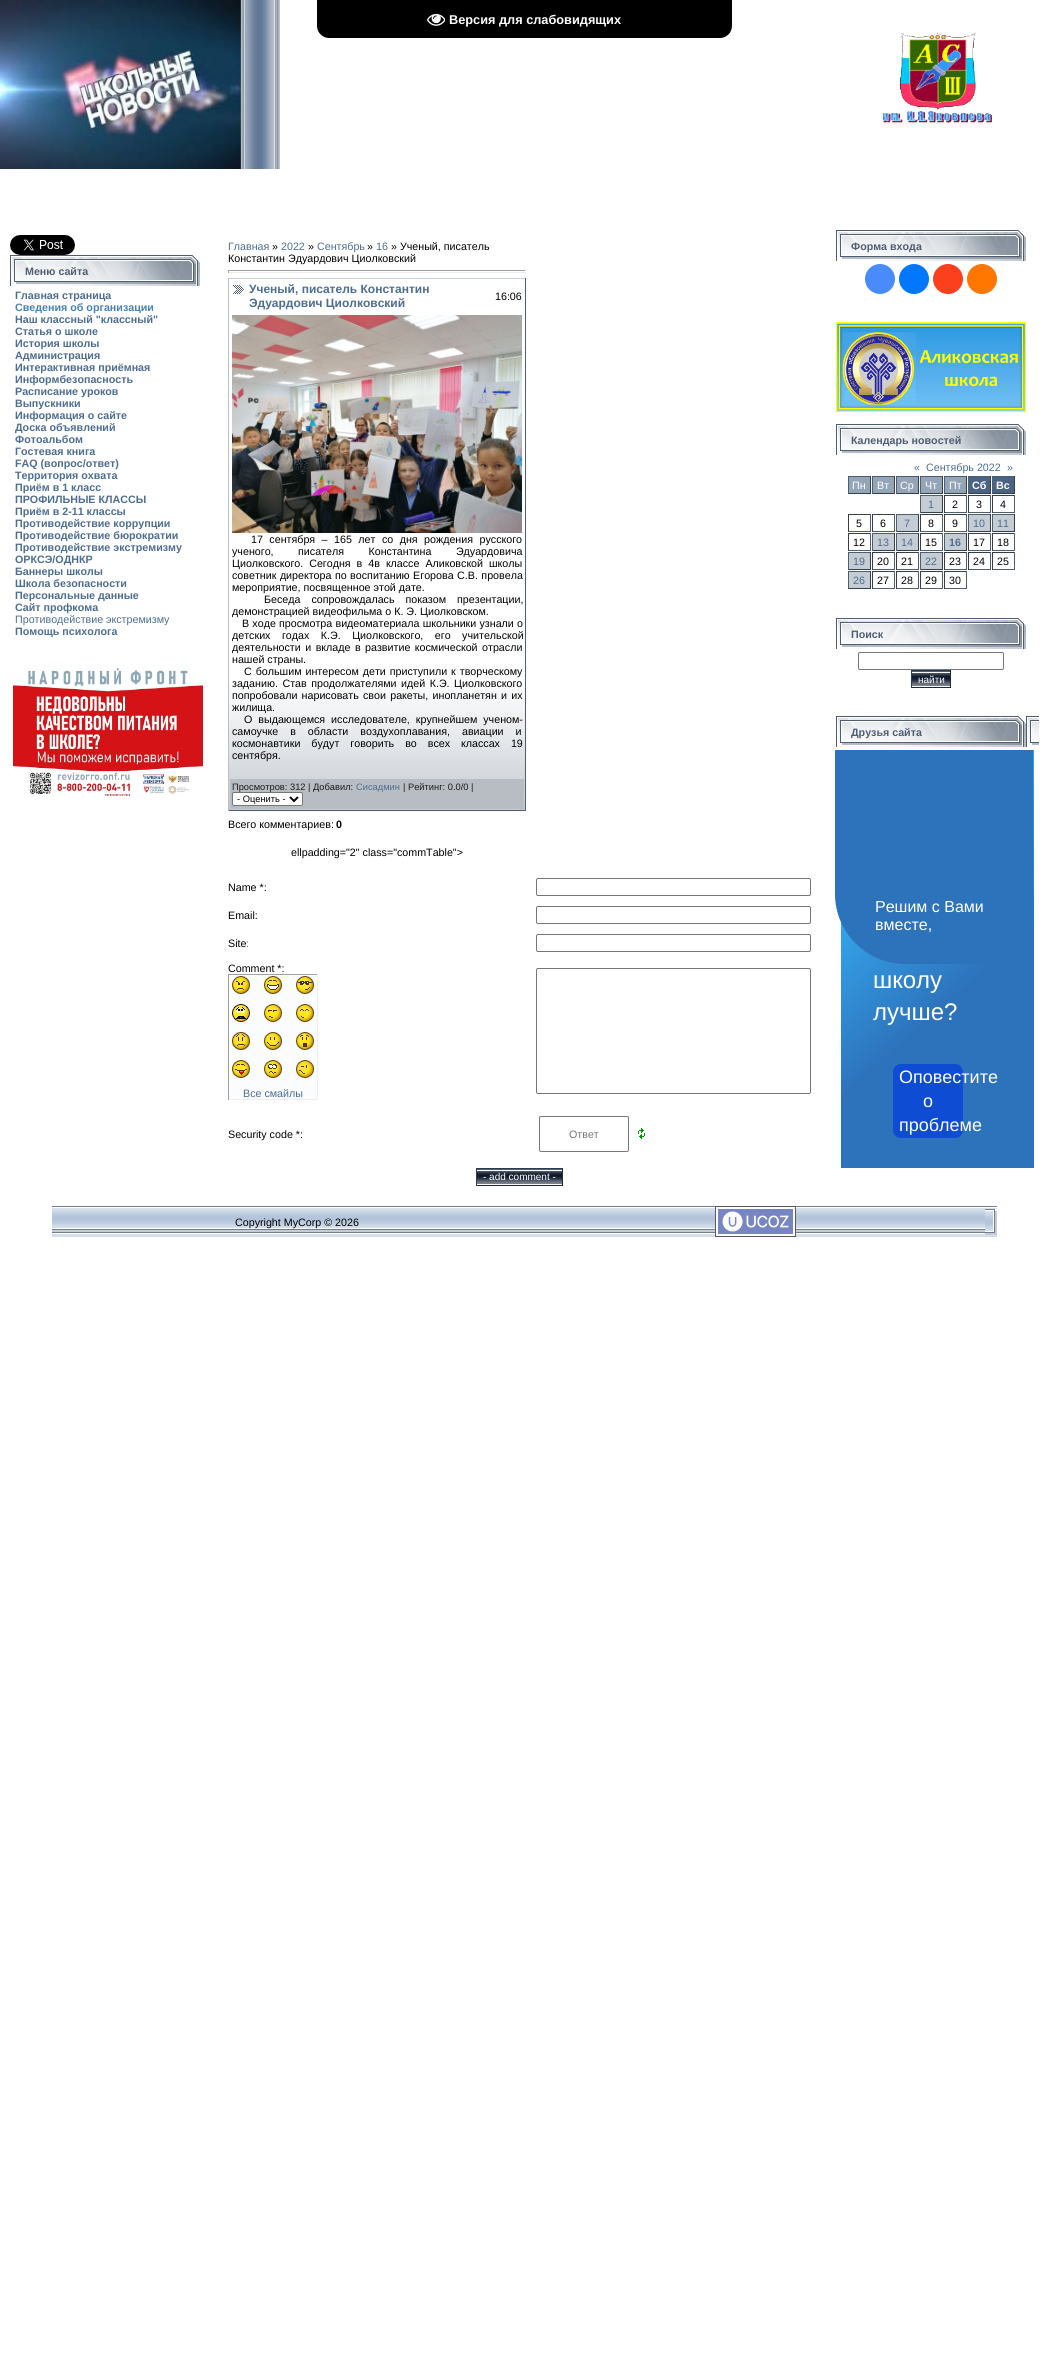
#include <cairo/cairo.h>
#include <math.h>
#include <stddef.h>

typedef struct { double x, y; const char *s; } line_t;
typedef struct { double x, y, w, h; unsigned color; } box_t;
static cairo_t *cr;

static void rgb(unsigned color)
{
	cairo_set_source_rgb(cr, (color >> 16) / 255.0, (color >> 8 & 255) / 255.0, (color & 255) / 255.0);
}

static void tracked(double x, double y, const char *s, double letter, double word)
{
	cairo_move_to(cr, x, y);
	while (*s) {
		char ch[5] = {0};
		int n = 0;
		do ch[n++] = *s++; while ((*s & 0xC0) == 0x80);
		cairo_show_text(cr, ch);
		cairo_rel_move_to(cr, letter + word * (*ch == ' '), 0);
	}
}

static void rrect(double x, double y, double w, double h, double r)
{
	cairo_new_sub_path(cr);
	cairo_arc(cr, x + w - r, y + h - r, r, 0, M_PI / 2);
	cairo_arc(cr, x + r, y + h - r, r, M_PI / 2, M_PI);
	cairo_arc(cr, x + r, y + r, r, M_PI, 1.5 * M_PI);
	cairo_arc(cr, x + w - r, y + r, r, 1.5 * M_PI, 2 * M_PI);
	cairo_close_path(cr);
}

static void image(const char *path, double x, double y, double w, double h)
{
	cairo_surface_t *image = cairo_image_surface_create_from_png(path);
	cairo_save(cr);
	cairo_set_source_surface(cr, image, x, y);
	cairo_rectangle(cr, x, y, w, h);
	cairo_fill(cr);
	cairo_restore(cr);
	cairo_surface_destroy(image);
}

int main(void) {
	cairo_surface_t *surface = cairo_image_surface_create(CAIRO_FORMAT_RGB24, 1049, 2363);
	cr = cairo_create(surface);
	cairo_font_options_t *options = cairo_font_options_create();
	cairo_font_options_set_hint_metrics(options, CAIRO_HINT_METRICS_OFF);
	cairo_font_options_set_hint_style(options, CAIRO_HINT_STYLE_NONE);
	cairo_set_font_options(cr, options);
	cairo_set_miter_limit(cr, 4);
	cairo_pattern_t *gradient;
	rgb(0xffffff);
	cairo_paint(cr);
	rgb(0x000000);
	cairo_new_path(cr);
	cairo_move_to(cr, 317, 0);
	cairo_line_to(cr, 732, 0);
	cairo_line_to(cr, 732, 26);
	cairo_curve_to(cr, 732, 32.5, 726.5, 38, 720, 38);
	cairo_line_to(cr, 329, 38);
	cairo_curve_to(cr, 322.5, 38, 317, 32.5, 317, 26);
	cairo_close_path(cr);
	cairo_fill(cr);
	image("img/1.png", 427, 13, 18, 13);
	image("img/2.png", 0, 0, 280, 169);
	image("img/3.png", 882, 33, 110, 90);
	image("img/4.png", 10, 235, 65, 20);
	image("img/5.png", 10, 255, 190, 31);
	image("img/6.png", 13, 668, 190, 129);
	{
		static const box_t items[] = {
			{228, 270, 298, 1, 0x9f9f9f},
			{525, 270, 1, 3, 0xeeeeee},
			{228, 272, 298, 1, 0xeeeeee},
			{228, 270, 1, 3, 0x9f9f9f},
		};
		for (size_t i = 0; i < sizeof items / sizeof *items; i++) {
			rgb(items[i].color);
			cairo_rectangle(cr, items[i].x, items[i].y, items[i].w, items[i].h);
			cairo_fill(cr);
		}
	}
	image("img/7.png", 229, 685, 296, 125);
	{
		static const box_t items[] = {
			{228, 278, 298, 1, 0xc9cfd8},
			{525, 278, 1, 533, 0x4f5d71},
			{228, 810, 298, 1, 0x4f5d71},
			{228, 278, 1, 533, 0xb9bfc7},
		};
		for (size_t i = 0; i < sizeof items / sizeof *items; i++) {
			rgb(items[i].color);
			cairo_rectangle(cr, items[i].x, items[i].y, items[i].w, items[i].h);
			cairo_fill(cr);
		}
	}
	image("img/8.png", 233, 285, 11, 9);
	image("img/9.png", 232, 315, 290, 218);
	rgb(0xb8bdc4);
	cairo_rectangle(cr, 230, 779, 294, 30);
	cairo_fill(cr);
	rgb(0xffffff);
	rrect(232.5, 792.5, 70, 13, 1.5);
	cairo_fill_preserve(cr);
	rgb(0x767676);
	cairo_set_line_width(cr, 1);
	cairo_stroke(cr);
	cairo_new_path(cr);
	cairo_move_to(cr, 290, 797);
	cairo_line_to(cr, 294, 801);
	cairo_line_to(cr, 298, 797);
	rgb(0x000000);
	cairo_set_line_width(cr, 2);
	cairo_stroke(cr);
	rrect(536.5, 878.5, 274, 17, 1.5);
	rgb(0x767676);
	cairo_set_line_width(cr, 1);
	cairo_stroke(cr);
	rrect(536.5, 906.5, 274, 17, 1.5);
	cairo_stroke(cr);
	rrect(536.5, 934.5, 274, 17, 1.5);
	cairo_stroke(cr);
	{
		static const box_t items[] = {
			{229, 975, 88, 124, 0xfafcfe},
			{228, 974, 90, 1, 0x9f9f9f},
			{317, 974, 1, 126, 0xeeeeee},
			{228, 1099, 90, 1, 0xeeeeee},
			{228, 974, 1, 126, 0x9f9f9f},
		};
		for (size_t i = 0; i < sizeof items / sizeof *items; i++) {
			rgb(items[i].color);
			cairo_rectangle(cr, items[i].x, items[i].y, items[i].w, items[i].h);
			cairo_fill(cr);
		}
	}
	image("img/10.png", 232, 976, 18, 18);
	image("img/11.png", 264, 976, 18, 18);
	image("img/12.png", 296, 976, 18, 18);
	image("img/13.png", 232, 1004, 18, 18);
	image("img/14.png", 264, 1004, 18, 18);
	image("img/15.png", 296, 1004, 18, 18);
	image("img/16.png", 232, 1032, 18, 18);
	image("img/17.png", 264, 1032, 18, 18);
	image("img/18.png", 296, 1032, 18, 18);
	image("img/19.png", 232, 1060, 18, 18);
	image("img/20.png", 264, 1060, 18, 18);
	image("img/21.png", 296, 1060, 18, 18);
	rrect(536.5, 968.5, 274, 125, 1.5);
	rgb(0x767676);
	cairo_stroke(cr);
	rrect(539.5, 1116.5, 89, 35, 1.5);
	cairo_stroke(cr);
	image("img/22.png", 638, 1128, 7, 11);
	image("img/23.png", 477, 1168, 85, 17);
	{
		static const box_t items[] = {
			{562, 1168, 1, 18, 0x1d2937},
			{476, 1185, 87, 1, 0x1d2937},
			{476, 1168, 1, 18, 0x2c3d52},
		};
		for (size_t i = 0; i < sizeof items / sizeof *items; i++) {
			rgb(items[i].color);
			cairo_rectangle(cr, items[i].x, items[i].y, items[i].w, items[i].h);
			cairo_fill(cr);
		}
	}
	image("img/5.png", 836, 230, 190, 31);
	rgb(0x498bfa);
	cairo_arc(cr, 880, 279, 15, 0, 2 * M_PI);
	cairo_fill(cr);
	rgb(0x0077ff);
	cairo_arc(cr, 914, 279, 15, 0, 2 * M_PI);
	cairo_fill(cr);
	rgb(0xfc3f1d);
	cairo_arc(cr, 948, 279, 15, 0, 2 * M_PI);
	cairo_fill(cr);
	rgb(0xff7700);
	cairo_arc(cr, 982, 279, 15, 0, 2 * M_PI);
	cairo_fill(cr);
	image("img/24.png", 836, 322, 190, 90);
	image("img/5.png", 836, 424, 190, 31);
	{
		static const box_t items[] = {
			{849, 477, 21, 16, 0x95a5b8},
			{848, 476, 23, 1, 0x4f5d71},
			{870, 476, 1, 18, 0x353e4b},
			{848, 493, 23, 1, 0x353e4b},
			{848, 476, 1, 18, 0x4f5d71},
			{873, 477, 21, 16, 0x95a5b8},
			{872, 476, 23, 1, 0x4f5d71},
			{894, 476, 1, 18, 0x353e4b},
			{872, 493, 23, 1, 0x353e4b},
			{872, 476, 1, 18, 0x4f5d71},
			{897, 477, 21, 16, 0x95a5b8},
			{896, 476, 23, 1, 0x4f5d71},
			{918, 476, 1, 18, 0x353e4b},
			{896, 493, 23, 1, 0x353e4b},
			{896, 476, 1, 18, 0x4f5d71},
			{921, 477, 21, 16, 0x95a5b8},
			{920, 476, 23, 1, 0x4f5d71},
			{942, 476, 1, 18, 0x353e4b},
			{920, 493, 23, 1, 0x353e4b},
			{920, 476, 1, 18, 0x4f5d71},
			{945, 477, 21, 16, 0x95a5b8},
			{944, 476, 23, 1, 0x4f5d71},
			{966, 476, 1, 18, 0x353e4b},
			{944, 493, 23, 1, 0x353e4b},
			{944, 476, 1, 18, 0x4f5d71},
			{969, 477, 21, 16, 0x4b6383},
			{968, 476, 23, 1, 0x4f5d71},
			{990, 476, 1, 18, 0x353e4b},
			{968, 493, 23, 1, 0x353e4b},
			{968, 476, 1, 18, 0x4f5d71},
			{993, 477, 21, 16, 0x4b6383},
			{992, 476, 23, 1, 0x4f5d71},
			{1014, 476, 1, 18, 0x353e4b},
			{992, 493, 23, 1, 0x353e4b},
			{992, 476, 1, 18, 0x4f5d71},
			{921, 496, 21, 16, 0xc6ccd3},
			{920, 495, 23, 1, 0x4f5d71},
			{942, 495, 1, 18, 0x353e4b},
			{920, 512, 23, 1, 0x353e4b},
			{920, 495, 1, 18, 0x4f5d71},
			{944, 495, 23, 1, 0x353e4b},
			{966, 495, 1, 18, 0x4f5d71},
			{944, 512, 23, 1, 0x4f5d71},
			{944, 495, 1, 18, 0x353e4b},
			{968, 495, 23, 1, 0x353e4b},
			{990, 495, 1, 18, 0x4f5d71},
			{968, 512, 23, 1, 0x4f5d71},
			{968, 495, 1, 18, 0x353e4b},
			{992, 495, 23, 1, 0x353e4b},
			{1014, 495, 1, 18, 0x4f5d71},
			{992, 512, 23, 1, 0x4f5d71},
			{992, 495, 1, 18, 0x353e4b},
			{848, 514, 23, 1, 0x353e4b},
			{870, 514, 1, 18, 0x4f5d71},
			{848, 531, 23, 1, 0x4f5d71},
			{848, 514, 1, 18, 0x353e4b},
			{872, 514, 23, 1, 0x353e4b},
			{894, 514, 1, 18, 0x4f5d71},
			{872, 531, 23, 1, 0x4f5d71},
			{872, 514, 1, 18, 0x353e4b},
			{897, 515, 21, 16, 0xc6ccd3},
			{896, 514, 23, 1, 0x4f5d71},
			{918, 514, 1, 18, 0x353e4b},
			{896, 531, 23, 1, 0x353e4b},
			{896, 514, 1, 18, 0x4f5d71},
			{920, 514, 23, 1, 0x353e4b},
			{942, 514, 1, 18, 0x4f5d71},
			{920, 531, 23, 1, 0x4f5d71},
			{920, 514, 1, 18, 0x353e4b},
			{944, 514, 23, 1, 0x353e4b},
			{966, 514, 1, 18, 0x4f5d71},
			{944, 531, 23, 1, 0x4f5d71},
			{944, 514, 1, 18, 0x353e4b},
			{969, 515, 21, 16, 0xc6ccd3},
			{968, 514, 23, 1, 0x4f5d71},
			{990, 514, 1, 18, 0x353e4b},
			{968, 531, 23, 1, 0x353e4b},
			{968, 514, 1, 18, 0x4f5d71},
			{993, 515, 21, 16, 0xc6ccd3},
			{992, 514, 23, 1, 0x4f5d71},
			{1014, 514, 1, 18, 0x353e4b},
			{992, 531, 23, 1, 0x353e4b},
			{992, 514, 1, 18, 0x4f5d71},
			{848, 533, 23, 1, 0x353e4b},
			{870, 533, 1, 18, 0x4f5d71},
			{848, 550, 23, 1, 0x4f5d71},
			{848, 533, 1, 18, 0x353e4b},
			{873, 534, 21, 16, 0xc6ccd3},
			{872, 533, 23, 1, 0x4f5d71},
			{894, 533, 1, 18, 0x353e4b},
			{872, 550, 23, 1, 0x353e4b},
			{872, 533, 1, 18, 0x4f5d71},
			{897, 534, 21, 16, 0xc6ccd3},
			{896, 533, 23, 1, 0x4f5d71},
			{918, 533, 1, 18, 0x353e4b},
			{896, 550, 23, 1, 0x353e4b},
			{896, 533, 1, 18, 0x4f5d71},
			{920, 533, 23, 1, 0x353e4b},
			{942, 533, 1, 18, 0x4f5d71},
			{920, 550, 23, 1, 0x4f5d71},
			{920, 533, 1, 18, 0x353e4b},
			{945, 534, 21, 16, 0xc6ccd3},
			{944, 533, 23, 1, 0x4f5d71},
			{966, 533, 1, 18, 0x353e4b},
			{944, 550, 23, 1, 0x353e4b},
			{944, 533, 1, 18, 0x4f5d71},
			{968, 533, 23, 1, 0x353e4b},
			{990, 533, 1, 18, 0x4f5d71},
			{968, 550, 23, 1, 0x4f5d71},
			{968, 533, 1, 18, 0x353e4b},
			{992, 533, 23, 1, 0x353e4b},
			{1014, 533, 1, 18, 0x4f5d71},
			{992, 550, 23, 1, 0x4f5d71},
			{992, 533, 1, 18, 0x353e4b},
			{849, 553, 21, 16, 0xc6ccd3},
			{848, 552, 23, 1, 0x4f5d71},
			{870, 552, 1, 18, 0x353e4b},
			{848, 569, 23, 1, 0x353e4b},
			{848, 552, 1, 18, 0x4f5d71},
			{872, 552, 23, 1, 0x353e4b},
			{894, 552, 1, 18, 0x4f5d71},
			{872, 569, 23, 1, 0x4f5d71},
			{872, 552, 1, 18, 0x353e4b},
			{896, 552, 23, 1, 0x353e4b},
			{918, 552, 1, 18, 0x4f5d71},
			{896, 569, 23, 1, 0x4f5d71},
			{896, 552, 1, 18, 0x353e4b},
			{921, 553, 21, 16, 0xc6ccd3},
			{920, 552, 23, 1, 0x4f5d71},
			{942, 552, 1, 18, 0x353e4b},
			{920, 569, 23, 1, 0x353e4b},
			{920, 552, 1, 18, 0x4f5d71},
			{944, 552, 23, 1, 0x353e4b},
			{966, 552, 1, 18, 0x4f5d71},
			{944, 569, 23, 1, 0x4f5d71},
			{944, 552, 1, 18, 0x353e4b},
			{968, 552, 23, 1, 0x353e4b},
			{990, 552, 1, 18, 0x4f5d71},
			{968, 569, 23, 1, 0x4f5d71},
			{968, 552, 1, 18, 0x353e4b},
			{992, 552, 23, 1, 0x353e4b},
			{1014, 552, 1, 18, 0x4f5d71},
			{992, 569, 23, 1, 0x4f5d71},
			{992, 552, 1, 18, 0x353e4b},
			{849, 572, 21, 16, 0xc6ccd3},
			{848, 571, 23, 1, 0x4f5d71},
			{870, 571, 1, 18, 0x353e4b},
			{848, 588, 23, 1, 0x353e4b},
			{848, 571, 1, 18, 0x4f5d71},
			{872, 571, 23, 1, 0x353e4b},
			{894, 571, 1, 18, 0x4f5d71},
			{872, 588, 23, 1, 0x4f5d71},
			{872, 571, 1, 18, 0x353e4b},
			{896, 571, 23, 1, 0x353e4b},
			{918, 571, 1, 18, 0x4f5d71},
			{896, 588, 23, 1, 0x4f5d71},
			{896, 571, 1, 18, 0x353e4b},
			{920, 571, 23, 1, 0x353e4b},
			{942, 571, 1, 18, 0x4f5d71},
			{920, 588, 23, 1, 0x4f5d71},
			{920, 571, 1, 18, 0x353e4b},
			{944, 571, 23, 1, 0x353e4b},
			{966, 571, 1, 18, 0x4f5d71},
			{944, 588, 23, 1, 0x4f5d71},
			{944, 571, 1, 18, 0x353e4b},
		};
		for (size_t i = 0; i < sizeof items / sizeof *items; i++) {
			rgb(items[i].color);
			cairo_rectangle(cr, items[i].x, items[i].y, items[i].w, items[i].h);
			cairo_fill(cr);
		}
	}
	image("img/5.png", 836, 618, 190, 31);
	rrect(858.5, 652.5, 145, 17, 1.5);
	rgb(0x767676);
	cairo_stroke(cr);
	image("img/25.png", 912, 670, 38, 17);
	{
		static const box_t items[] = {
			{950, 670, 1, 18, 0x1d2937},
			{911, 687, 40, 1, 0x1d2937},
			{911, 670, 1, 18, 0x2c3d52},
		};
		for (size_t i = 0; i < sizeof items / sizeof *items; i++) {
			rgb(items[i].color);
			cairo_rectangle(cr, items[i].x, items[i].y, items[i].w, items[i].h);
			cairo_fill(cr);
		}
	}
	image("img/26.png", 836, 716, 203, 31);
	gradient = cairo_pattern_create_linear(791, 794, 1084, 1124);
	cairo_pattern_add_color_stop_rgba(gradient, 0.16, 0.22, 0.729, 0.996, 1);
	cairo_pattern_add_color_stop_rgba(gradient, 0.59, 0.176, 0.451, 0.737, 1);
	cairo_set_source(cr, gradient);
	cairo_pattern_destroy(gradient);
	cairo_rectangle(cr, 841, 750, 193, 418);
	cairo_fill(cr);
	rgb(0x2d73bc);
	cairo_new_path(cr);
	cairo_move_to(cr, 835, 750);
	cairo_line_to(cr, 1033, 750);
	cairo_line_to(cr, 1033, 964);
	cairo_line_to(cr, 905, 964);
	cairo_curve_to(cr, 866.5, 964, 835, 932.5, 835, 894);
	cairo_close_path(cr);
	cairo_fill(cr);
	rgb(0x0d4cd3);
	rrect(893, 1064, 70, 74, 8);
	cairo_fill(cr);
	image("img/27.png", 52, 1206, 945, 31);
	image("img/28.png", 715, 1206, 81, 31);
	image("img/29.png", 985, 1209, 12, 26);
	cairo_select_font_face(cr, "Liberation Sans", CAIRO_FONT_SLANT_NORMAL, CAIRO_FONT_WEIGHT_BOLD);
	cairo_set_font_size(cr, 12.75);
	rgb(0xffffff);
	cairo_move_to(cr, 449, 24);
	cairo_show_text(cr, "Версия для слабовидящих");
	cairo_set_font_size(cr, 10.7);
	rgb(0x4f5d71);
	cairo_move_to(cr, 25, 275);
	cairo_show_text(cr, "Меню сайта");
	rgb(0x4d6d91);
	cairo_move_to(cr, 15, 299);
	cairo_show_text(cr, "Главная страница");
	rgb(0x4682b4);
	cairo_move_to(cr, 15, 311);
	cairo_show_text(cr, "Сведения об организации");
	rgb(0x4d6d91);
	{
		static const line_t items[] = {
			{15, 323, "Наш классный \"классный\""},
			{15, 335, "Статья о школе"},
			{15, 347, "История школы"},
			{15, 359, "Администрация"},
			{15, 371, "Интерактивная приёмная"},
			{15, 383, "Информбезопасность"},
			{15, 395, "Расписание уроков"},
			{15, 407, "Выпускники"},
			{15, 419, "Информация о сайте"},
			{15, 431, "Доска объявлений"},
			{15, 443, "Фотоальбом"},
			{15, 455, "Гостевая книга"},
			{15, 467, "FAQ (вопрос/ответ)"},
			{15, 479, "Территория охвата"},
			{15, 491, "Приём в 1 класс"},
			{15, 503, "ПРОФИЛЬНЫЕ КЛАССЫ"},
			{15, 515, "Приём в 2-11 классы"},
			{15, 527, "Противодействие коррупции"},
			{15, 539, "Противодействие бюрократии"},
			{15, 551, "Противодействие экстремизму"},
			{15, 563, "ОРКСЭ/ОДНКР"},
			{15, 575, "Баннеры школы"},
			{15, 587, "Школа безопасности"},
			{15, 599, "Персональные данные"},
			{15, 611, "Сайт профкома"},
		};
		for (size_t i = 0; i < sizeof items / sizeof *items; i++) {
			cairo_move_to(cr, items[i].x, items[i].y);
			cairo_show_text(cr, items[i].s);
		}
	}
	cairo_select_font_face(cr, "Liberation Sans", CAIRO_FONT_SLANT_NORMAL, CAIRO_FONT_WEIGHT_NORMAL);
	cairo_move_to(cr, 15, 623);
	cairo_show_text(cr, "Противодействие экстремизму");
	cairo_select_font_face(cr, "Liberation Sans", CAIRO_FONT_SLANT_NORMAL, CAIRO_FONT_WEIGHT_BOLD);
	cairo_move_to(cr, 15, 635);
	cairo_show_text(cr, "Помощь психолога");
	cairo_select_font_face(cr, "Liberation Sans", CAIRO_FONT_SLANT_NORMAL, CAIRO_FONT_WEIGHT_NORMAL);
	cairo_move_to(cr, 228, 250);
	cairo_show_text(cr, "Главная");
	rgb(0x000000);
	cairo_move_to(cr, 272, 250);
	cairo_show_text(cr, "»");
	rgb(0x4d6d91);
	cairo_move_to(cr, 281, 250);
	cairo_show_text(cr, "2022");
	rgb(0x000000);
	cairo_move_to(cr, 308, 250);
	cairo_show_text(cr, "»");
	rgb(0x4d6d91);
	cairo_move_to(cr, 317, 250);
	cairo_show_text(cr, "Сентябрь");
	rgb(0x000000);
	cairo_move_to(cr, 367, 250);
	cairo_show_text(cr, "»");
	rgb(0x4d6d91);
	cairo_move_to(cr, 376, 250);
	cairo_show_text(cr, "16");
	rgb(0x000000);
	cairo_move_to(cr, 391, 250);
	cairo_show_text(cr, "» Ученый, писатель");
	cairo_move_to(cr, 228, 262);
	cairo_show_text(cr, "Константин Эдуардович Циолковский");
	cairo_select_font_face(cr, "Liberation Sans", CAIRO_FONT_SLANT_NORMAL, CAIRO_FONT_WEIGHT_BOLD);
	cairo_set_font_size(cr, 12);
	rgb(0x4d6d91);
	cairo_move_to(cr, 249, 293);
	cairo_show_text(cr, "Ученый, писатель Константин");
	cairo_move_to(cr, 249, 307);
	cairo_show_text(cr, "Эдуардович Циолковский");
	cairo_select_font_face(cr, "Liberation Sans", CAIRO_FONT_SLANT_NORMAL, CAIRO_FONT_WEIGHT_NORMAL);
	cairo_set_font_size(cr, 10.7);
	rgb(0x000000);
	cairo_move_to(cr, 495, 300);
	cairo_show_text(cr, "16:06");
	tracked(251, 543, "17 сентября – 165 лет со дня рождения русского", 0, 3.5);
	tracked(232, 555, "ученого, писателя Константина Эдуардовича", 0, 21.5);
	tracked(232, 567, "Циолковского. Сегодня в 4в классе Аликовской школы", 0, 3);
	tracked(232, 579, "советник директора по воспитанию Егорова С.В. провела", 0, 0.5);
	cairo_move_to(cr, 232, 591);
	cairo_show_text(cr, "мероприятие, посвященное этой дате.");
	tracked(264, 603, "Беседа сопровождалась показом презентации,", 0, 8);
	cairo_move_to(cr, 232, 615);
	cairo_show_text(cr, "демонстрацией видеофильма о К. Э. Циолковском.");
	tracked(242, 627, "В ходе просмотра видеоматериала школьники узнали о", 0, 0.25);
	tracked(232, 639, "детских годах К.Э. Циолковского, его учительской", 0, 8.5);
	tracked(232, 651, "деятельности и вкладе в развитие космической отрасли", 0, 1.5);
	cairo_move_to(cr, 232, 663);
	cairo_show_text(cr, "нашей страны.");
	tracked(244, 675, "С большим интересом дети приступили к творческому", 0, 1);
	tracked(232, 687, "заданию. Став продолжателями идей К.Э. Циолковского", 0, 1.5);
	tracked(232, 699, "попробовали нарисовать свои ракеты, инопланетян и их", 0, 1.25);
	cairo_move_to(cr, 232, 711);
	cairo_show_text(cr, "жилища.");
	tracked(244, 723, "О выдающемся исследователе, крупнейшем ученом-", 0, 3);
	tracked(232, 735, "самоучке в области воздухоплавания, авиации и", 0, 9);
	tracked(232, 747, "космонавтики будут говорить во всех классах 19", 0, 8);
	cairo_move_to(cr, 232, 759);
	cairo_show_text(cr, "сентября.");
	cairo_set_font_size(cr, 9.3);
	rgb(0x1a1a1a);
	cairo_move_to(cr, 232, 790);
	cairo_show_text(cr, "Просмотров: 312 | Добавил:");
	rgb(0x4d6d91);
	cairo_move_to(cr, 356, 790);
	cairo_show_text(cr, "Сисадмин");
	rgb(0x1a1a1a);
	cairo_move_to(cr, 403, 790);
	cairo_show_text(cr, "| Рейтинг: 0.0/0 |");
	rgb(0x000000);
	cairo_move_to(cr, 237, 802);
	cairo_show_text(cr, "- Оценить -");
	cairo_set_font_size(cr, 10.7);
	cairo_move_to(cr, 228, 828);
	cairo_show_text(cr, "Всего комментариев:");
	cairo_select_font_face(cr, "Liberation Sans", CAIRO_FONT_SLANT_NORMAL, CAIRO_FONT_WEIGHT_BOLD);
	cairo_move_to(cr, 336, 828);
	cairo_show_text(cr, "0");
	cairo_select_font_face(cr, "Liberation Sans", CAIRO_FONT_SLANT_NORMAL, CAIRO_FONT_WEIGHT_NORMAL);
	{
		static const line_t items[] = {
			{291, 856, "ellpadding=\"2\" class=\"commTable\">"},
			{228, 891, "Name *:"},
			{228, 919, "Email:"},
			{228, 947, "Site:"},
			{228, 972, "Comment *:"},
		};
		for (size_t i = 0; i < sizeof items / sizeof *items; i++) {
			cairo_move_to(cr, items[i].x, items[i].y);
			cairo_show_text(cr, items[i].s);
		}
	}
	rgb(0x4d6d91);
	cairo_move_to(cr, 243, 1097);
	cairo_show_text(cr, "Все смайлы");
	rgb(0x000000);
	cairo_move_to(cr, 228, 1138);
	cairo_show_text(cr, "Security code *:");
	rgb(0x757575);
	cairo_move_to(cr, 569, 1138);
	cairo_show_text(cr, "Ответ");
	cairo_set_font_size(cr, 10);
	rgb(0xffffff);
	cairo_move_to(cr, 483, 1180);
	cairo_show_text(cr, "- add comment -");
	cairo_select_font_face(cr, "Liberation Sans", CAIRO_FONT_SLANT_NORMAL, CAIRO_FONT_WEIGHT_BOLD);
	cairo_set_font_size(cr, 10.7);
	rgb(0x4f5d71);
	cairo_move_to(cr, 851, 250);
	cairo_show_text(cr, "Форма входа");
	cairo_move_to(cr, 851, 444);
	cairo_show_text(cr, "Календарь новостей");
	cairo_select_font_face(cr, "Liberation Sans", CAIRO_FONT_SLANT_NORMAL, CAIRO_FONT_WEIGHT_NORMAL);
	rgb(0x4d6d91);
	{
		static const line_t items[] = {
			{914, 471, "«"},
			{926, 471, "Сентябрь 2022"},
			{1007, 471, "»"},
		};
		for (size_t i = 0; i < sizeof items / sizeof *items; i++) {
			cairo_move_to(cr, items[i].x, items[i].y);
			cairo_show_text(cr, items[i].s);
		}
	}
	rgb(0xffffff);
	{
		static const line_t items[] = {
			{852, 489, "Пн"},
			{877, 489, "Вт"},
			{900, 489, "Ср"},
			{925, 489, "Чт"},
			{949, 489, "Пт"},
		};
		for (size_t i = 0; i < sizeof items / sizeof *items; i++) {
			cairo_move_to(cr, items[i].x, items[i].y);
			cairo_show_text(cr, items[i].s);
		}
	}
	cairo_select_font_face(cr, "Liberation Sans", CAIRO_FONT_SLANT_NORMAL, CAIRO_FONT_WEIGHT_BOLD);
	cairo_move_to(cr, 972, 489);
	cairo_show_text(cr, "Сб");
	cairo_move_to(cr, 996, 489);
	cairo_show_text(cr, "Вс");
	cairo_select_font_face(cr, "Liberation Sans", CAIRO_FONT_SLANT_NORMAL, CAIRO_FONT_WEIGHT_NORMAL);
	rgb(0x4d6d91);
	cairo_move_to(cr, 928, 508);
	cairo_show_text(cr, "1");
	rgb(0x000000);
	{
		static const line_t items[] = {
			{952, 508, "2"},
			{976, 508, "3"},
			{1000, 508, "4"},
			{856, 527, "5"},
			{880, 527, "6"},
		};
		for (size_t i = 0; i < sizeof items / sizeof *items; i++) {
			cairo_move_to(cr, items[i].x, items[i].y);
			cairo_show_text(cr, items[i].s);
		}
	}
	rgb(0x4d6d91);
	cairo_move_to(cr, 904, 527);
	cairo_show_text(cr, "7");
	rgb(0x000000);
	cairo_move_to(cr, 928, 527);
	cairo_show_text(cr, "8");
	cairo_move_to(cr, 952, 527);
	cairo_show_text(cr, "9");
	rgb(0x4d6d91);
	cairo_move_to(cr, 973, 527);
	cairo_show_text(cr, "10");
	cairo_move_to(cr, 997, 527);
	cairo_show_text(cr, "11");
	rgb(0x000000);
	cairo_move_to(cr, 853, 546);
	cairo_show_text(cr, "12");
	rgb(0x4d6d91);
	cairo_move_to(cr, 877, 546);
	cairo_show_text(cr, "13");
	cairo_move_to(cr, 901, 546);
	cairo_show_text(cr, "14");
	rgb(0x000000);
	cairo_move_to(cr, 925, 546);
	cairo_show_text(cr, "15");
	cairo_select_font_face(cr, "Liberation Sans", CAIRO_FONT_SLANT_NORMAL, CAIRO_FONT_WEIGHT_BOLD);
	rgb(0x4d6d91);
	cairo_move_to(cr, 949, 546);
	cairo_show_text(cr, "16");
	cairo_select_font_face(cr, "Liberation Sans", CAIRO_FONT_SLANT_NORMAL, CAIRO_FONT_WEIGHT_NORMAL);
	rgb(0x000000);
	cairo_move_to(cr, 973, 546);
	cairo_show_text(cr, "17");
	cairo_move_to(cr, 997, 546);
	cairo_show_text(cr, "18");
	rgb(0x4d6d91);
	cairo_move_to(cr, 853, 565);
	cairo_show_text(cr, "19");
	rgb(0x000000);
	cairo_move_to(cr, 877, 565);
	cairo_show_text(cr, "20");
	cairo_move_to(cr, 901, 565);
	cairo_show_text(cr, "21");
	rgb(0x4d6d91);
	cairo_move_to(cr, 925, 565);
	cairo_show_text(cr, "22");
	rgb(0x000000);
	{
		static const line_t items[] = {
			{949, 565, "23"},
			{973, 565, "24"},
			{997, 565, "25"},
		};
		for (size_t i = 0; i < sizeof items / sizeof *items; i++) {
			cairo_move_to(cr, items[i].x, items[i].y);
			cairo_show_text(cr, items[i].s);
		}
	}
	rgb(0x4d6d91);
	cairo_move_to(cr, 853, 584);
	cairo_show_text(cr, "26");
	rgb(0x000000);
	{
		static const line_t items[] = {
			{877, 584, "27"},
			{901, 584, "28"},
			{925, 584, "29"},
			{949, 584, "30"},
		};
		for (size_t i = 0; i < sizeof items / sizeof *items; i++) {
			cairo_move_to(cr, items[i].x, items[i].y);
			cairo_show_text(cr, items[i].s);
		}
	}
	cairo_select_font_face(cr, "Liberation Sans", CAIRO_FONT_SLANT_NORMAL, CAIRO_FONT_WEIGHT_BOLD);
	rgb(0x4f5d71);
	cairo_move_to(cr, 851, 638);
	cairo_show_text(cr, "Поиск");
	cairo_select_font_face(cr, "Liberation Sans", CAIRO_FONT_SLANT_NORMAL, CAIRO_FONT_WEIGHT_NORMAL);
	cairo_set_font_size(cr, 10);
	rgb(0xffffff);
	cairo_move_to(cr, 918, 683);
	cairo_show_text(cr, "найти");
	cairo_select_font_face(cr, "Liberation Sans", CAIRO_FONT_SLANT_NORMAL, CAIRO_FONT_WEIGHT_BOLD);
	cairo_set_font_size(cr, 10.7);
	rgb(0x4f5d71);
	cairo_move_to(cr, 851, 736);
	cairo_show_text(cr, "Друзья сайта");
	cairo_select_font_face(cr, "Liberation Sans", CAIRO_FONT_SLANT_NORMAL, CAIRO_FONT_WEIGHT_NORMAL);
	cairo_set_font_size(cr, 16);
	rgb(0xffffff);
	cairo_move_to(cr, 875, 912);
	cairo_show_text(cr, "Решим с Вами");
	cairo_move_to(cr, 875, 930);
	cairo_show_text(cr, "вместе,");
	cairo_set_font_size(cr, 24);
	cairo_move_to(cr, 873, 988);
	cairo_show_text(cr, "школу");
	cairo_move_to(cr, 873, 1020);
	cairo_show_text(cr, "лучше?");
	cairo_set_font_size(cr, 18);
	{
		static const line_t items[] = {
			{899, 1083, "Оповестите"},
			{923, 1107, "о"},
			{899, 1131, "проблеме"},
		};
		for (size_t i = 0; i < sizeof items / sizeof *items; i++) {
			cairo_move_to(cr, items[i].x, items[i].y);
			cairo_show_text(cr, items[i].s);
		}
	}
	cairo_set_font_size(cr, 10.7);
	rgb(0x000000);
	cairo_move_to(cr, 235, 1226);
	cairo_show_text(cr, "Copyright MyCorp © 2026");
	cairo_surface_write_to_png(surface, "page.png");
	cairo_font_options_destroy(options);
	cairo_destroy(cr);
	cairo_surface_destroy(surface);
	return 0;
}
